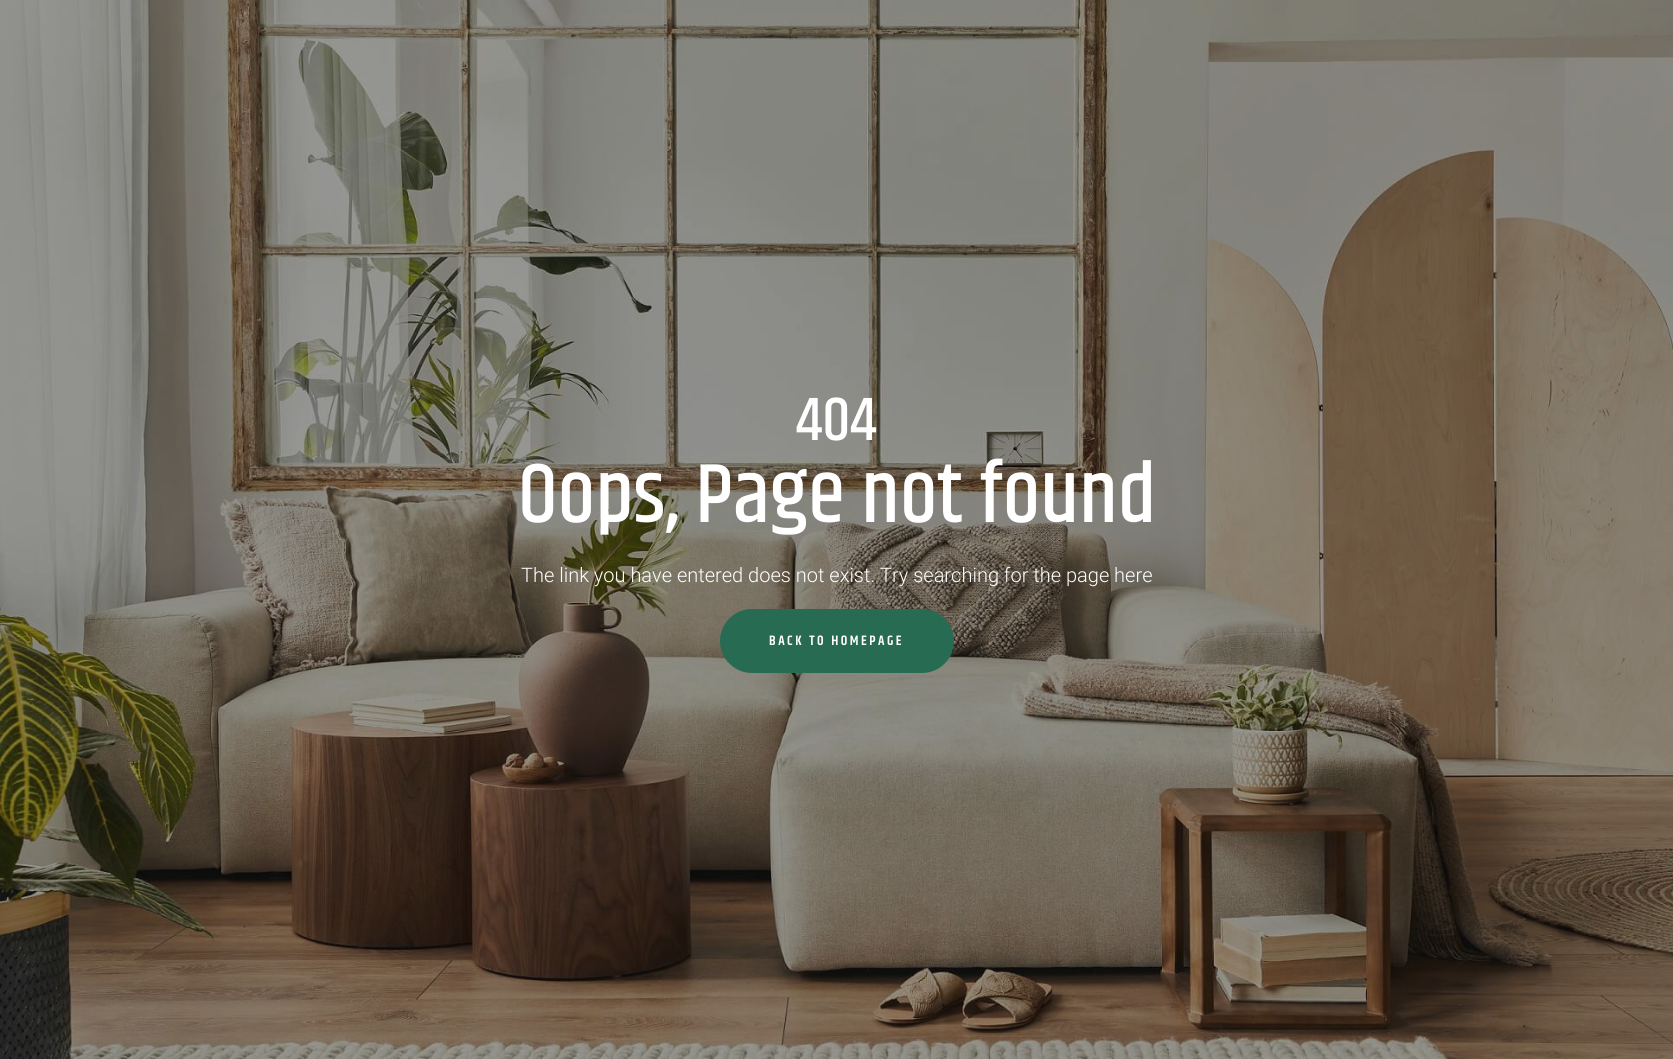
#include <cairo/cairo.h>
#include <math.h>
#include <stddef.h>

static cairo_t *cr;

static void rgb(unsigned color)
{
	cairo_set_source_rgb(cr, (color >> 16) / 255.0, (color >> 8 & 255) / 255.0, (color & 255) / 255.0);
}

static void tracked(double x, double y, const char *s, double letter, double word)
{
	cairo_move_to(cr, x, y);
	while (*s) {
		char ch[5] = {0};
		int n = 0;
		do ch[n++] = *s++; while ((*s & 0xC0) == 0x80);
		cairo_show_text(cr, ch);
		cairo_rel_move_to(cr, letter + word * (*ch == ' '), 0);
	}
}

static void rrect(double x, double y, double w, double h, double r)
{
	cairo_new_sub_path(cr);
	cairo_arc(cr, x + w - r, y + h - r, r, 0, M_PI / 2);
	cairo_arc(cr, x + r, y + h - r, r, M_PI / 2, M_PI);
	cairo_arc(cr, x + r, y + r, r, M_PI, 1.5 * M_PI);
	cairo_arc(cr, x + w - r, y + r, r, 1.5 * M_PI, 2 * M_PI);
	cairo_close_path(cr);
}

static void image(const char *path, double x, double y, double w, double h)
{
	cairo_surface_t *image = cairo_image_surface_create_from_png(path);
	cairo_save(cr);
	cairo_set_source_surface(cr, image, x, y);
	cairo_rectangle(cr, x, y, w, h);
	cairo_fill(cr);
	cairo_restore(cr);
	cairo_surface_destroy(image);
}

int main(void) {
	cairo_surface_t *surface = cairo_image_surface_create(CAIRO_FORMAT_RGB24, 1673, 1059);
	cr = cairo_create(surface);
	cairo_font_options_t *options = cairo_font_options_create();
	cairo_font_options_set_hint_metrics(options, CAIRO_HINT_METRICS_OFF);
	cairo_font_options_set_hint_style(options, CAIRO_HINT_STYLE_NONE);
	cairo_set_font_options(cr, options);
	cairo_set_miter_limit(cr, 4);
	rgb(0xffffff);
	cairo_paint(cr);
	image("img/1.png", 0, 0, 1673, 1059);
	rgb(0x286b53);
	rrect(720, 609, 234, 64, 32);
	cairo_fill(cr);
	cairo_select_font_face(cr, "Khand Medium", CAIRO_FONT_SLANT_NORMAL, CAIRO_FONT_WEIGHT_NORMAL);
	cairo_set_font_size(cr, 62);
	rgb(0xffffff);
	cairo_move_to(cr, 796, 440);
	cairo_show_text(cr, "404");
	cairo_set_font_size(cr, 85);
	cairo_move_to(cr, 518, 522);
	cairo_show_text(cr, "Oops, Page not found");
	cairo_select_font_face(cr, "Roboto Light", CAIRO_FONT_SLANT_NORMAL, CAIRO_FONT_WEIGHT_NORMAL);
	cairo_set_font_size(cr, 20);
	cairo_move_to(cr, 521, 582);
	cairo_show_text(cr, "The link you have entered does not exist. Try searching for the page here");
	cairo_select_font_face(cr, "Khand SemiBold", CAIRO_FONT_SLANT_NORMAL, CAIRO_FONT_WEIGHT_NORMAL);
	cairo_set_font_size(cr, 13.75);
	tracked(769, 645, "BACK TO HOMEPAGE", 2.5, 0);
	cairo_surface_write_to_png(surface, "page.png");
	cairo_font_options_destroy(options);
	cairo_destroy(cr);
	cairo_surface_destroy(surface);
	return 0;
}
